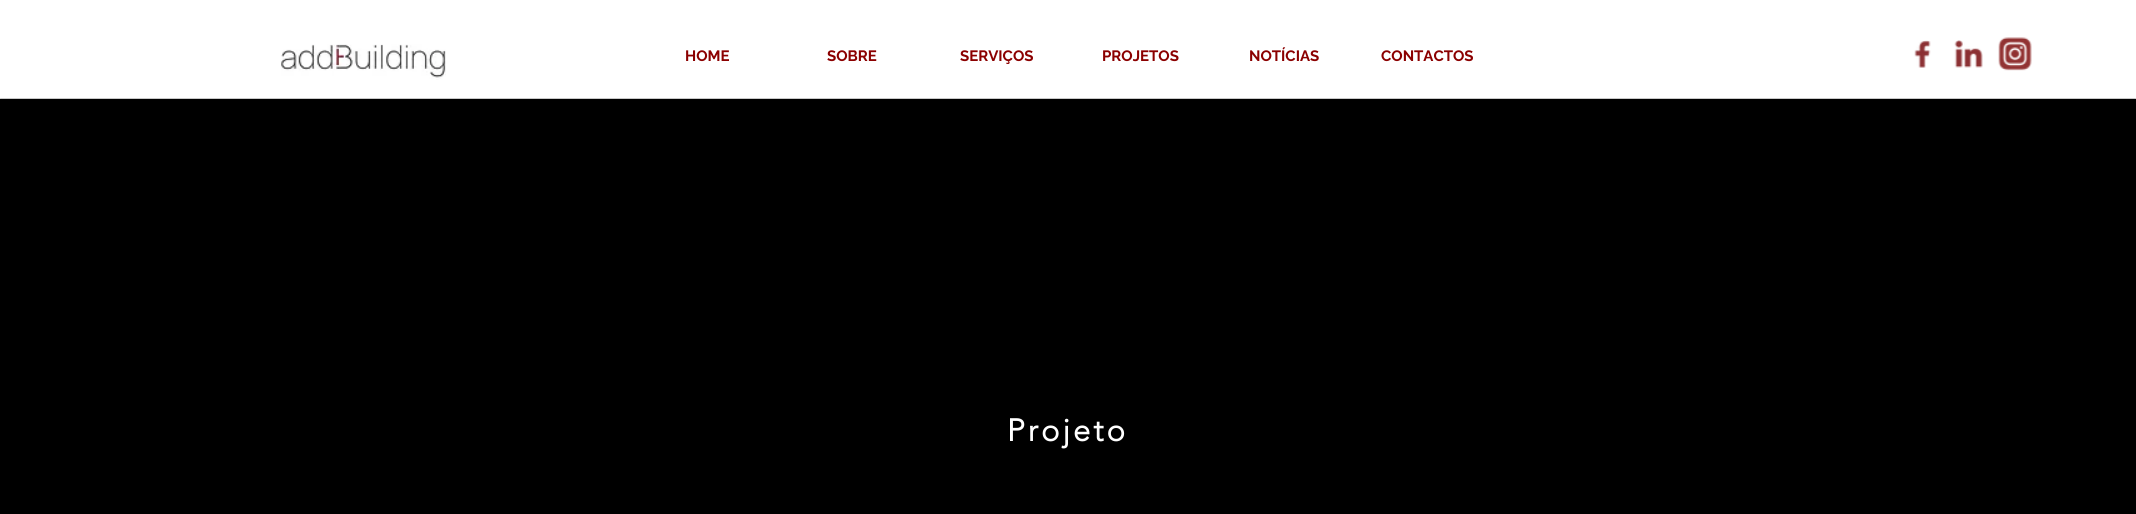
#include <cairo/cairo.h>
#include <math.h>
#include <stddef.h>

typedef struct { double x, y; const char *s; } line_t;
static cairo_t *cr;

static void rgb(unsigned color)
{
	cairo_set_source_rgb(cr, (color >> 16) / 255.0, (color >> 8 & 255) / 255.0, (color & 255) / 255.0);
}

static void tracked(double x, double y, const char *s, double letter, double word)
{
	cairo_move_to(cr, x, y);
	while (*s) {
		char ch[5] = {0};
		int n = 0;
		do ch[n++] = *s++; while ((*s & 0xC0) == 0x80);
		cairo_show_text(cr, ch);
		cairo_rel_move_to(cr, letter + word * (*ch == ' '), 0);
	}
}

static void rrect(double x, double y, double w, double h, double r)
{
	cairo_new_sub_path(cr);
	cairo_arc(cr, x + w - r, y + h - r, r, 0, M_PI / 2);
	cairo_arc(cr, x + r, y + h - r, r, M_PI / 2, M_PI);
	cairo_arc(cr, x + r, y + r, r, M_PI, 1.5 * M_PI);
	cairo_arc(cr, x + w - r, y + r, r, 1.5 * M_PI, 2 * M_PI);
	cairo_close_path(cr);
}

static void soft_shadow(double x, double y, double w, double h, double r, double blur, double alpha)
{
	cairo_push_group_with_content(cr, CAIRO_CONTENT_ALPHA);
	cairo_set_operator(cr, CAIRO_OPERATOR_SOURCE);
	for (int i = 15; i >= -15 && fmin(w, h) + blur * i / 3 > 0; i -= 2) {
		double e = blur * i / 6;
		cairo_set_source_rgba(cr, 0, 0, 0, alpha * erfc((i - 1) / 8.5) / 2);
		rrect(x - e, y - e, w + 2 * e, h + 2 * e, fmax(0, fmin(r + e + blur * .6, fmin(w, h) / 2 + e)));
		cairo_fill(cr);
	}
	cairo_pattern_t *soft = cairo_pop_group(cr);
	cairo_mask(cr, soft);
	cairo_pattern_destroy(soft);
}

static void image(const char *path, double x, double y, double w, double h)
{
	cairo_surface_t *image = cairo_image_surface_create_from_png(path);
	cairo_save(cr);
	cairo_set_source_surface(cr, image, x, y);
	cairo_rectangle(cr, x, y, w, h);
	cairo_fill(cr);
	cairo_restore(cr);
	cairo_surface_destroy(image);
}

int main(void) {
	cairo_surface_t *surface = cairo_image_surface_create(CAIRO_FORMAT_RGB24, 2136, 514);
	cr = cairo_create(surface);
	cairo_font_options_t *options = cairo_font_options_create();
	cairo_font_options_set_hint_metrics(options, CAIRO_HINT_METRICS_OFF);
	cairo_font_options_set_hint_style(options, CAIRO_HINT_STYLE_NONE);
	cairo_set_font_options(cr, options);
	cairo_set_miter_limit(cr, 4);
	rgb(0xffffff);
	cairo_paint(cr);
	rgb(0x000000);
	cairo_rectangle(cr, 0, 99, 2136, 415);
	cairo_fill(cr);
	rgb(0x000000);
	soft_shadow(0, 1, 2136, 98, 0, 0.5, 0.25);
	rgb(0xffffff);
	cairo_rectangle(cr, 0, 0, 2136, 98);
	cairo_fill(cr);
	image("img/1.png", 281, 44, 165, 36);
	image("img/2.png", 1914, 40, 17, 28);
	image("img/3.png", 1954, 40, 29, 28);
	image("img/4.png", 1998, 37, 34, 34);
	cairo_select_font_face(cr, "Raleway", CAIRO_FONT_SLANT_NORMAL, CAIRO_FONT_WEIGHT_BOLD);
	cairo_set_font_size(cr, 15);
	rgb(0x8b0000);
	{
		static const line_t items[] = {
			{685, 61, "HOME"},
			{827, 61, "SOBRE"},
			{960, 61, "SERVIÇOS"},
			{1102, 61, "PROJETOS"},
			{1249, 61, "NOTÍCIAS"},
			{1381, 61, "CONTACTOS"},
		};
		for (size_t i = 0; i < sizeof items / sizeof *items; i++) {
			cairo_move_to(cr, items[i].x, items[i].y);
			cairo_show_text(cr, items[i].s);
		}
	}
	cairo_select_font_face(cr, "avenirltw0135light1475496", CAIRO_FONT_SLANT_NORMAL, CAIRO_FONT_WEIGHT_BOLD);
	cairo_set_font_size(cr, 31);
	rgb(0xffffff);
	tracked(1007, 441, "Projeto", 3, 0);
	cairo_surface_write_to_png(surface, "page.png");
	cairo_font_options_destroy(options);
	cairo_destroy(cr);
	cairo_surface_destroy(surface);
	return 0;
}
